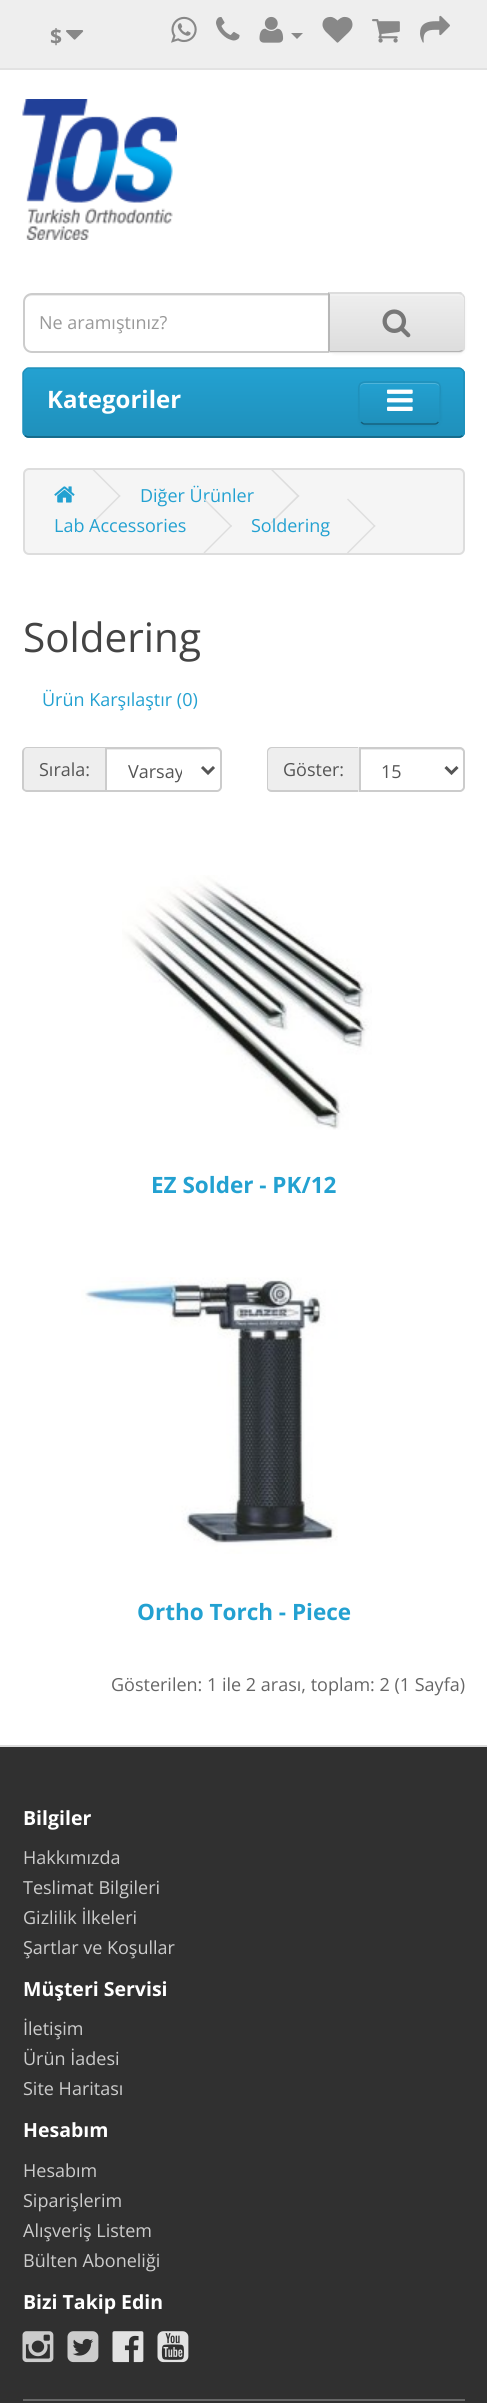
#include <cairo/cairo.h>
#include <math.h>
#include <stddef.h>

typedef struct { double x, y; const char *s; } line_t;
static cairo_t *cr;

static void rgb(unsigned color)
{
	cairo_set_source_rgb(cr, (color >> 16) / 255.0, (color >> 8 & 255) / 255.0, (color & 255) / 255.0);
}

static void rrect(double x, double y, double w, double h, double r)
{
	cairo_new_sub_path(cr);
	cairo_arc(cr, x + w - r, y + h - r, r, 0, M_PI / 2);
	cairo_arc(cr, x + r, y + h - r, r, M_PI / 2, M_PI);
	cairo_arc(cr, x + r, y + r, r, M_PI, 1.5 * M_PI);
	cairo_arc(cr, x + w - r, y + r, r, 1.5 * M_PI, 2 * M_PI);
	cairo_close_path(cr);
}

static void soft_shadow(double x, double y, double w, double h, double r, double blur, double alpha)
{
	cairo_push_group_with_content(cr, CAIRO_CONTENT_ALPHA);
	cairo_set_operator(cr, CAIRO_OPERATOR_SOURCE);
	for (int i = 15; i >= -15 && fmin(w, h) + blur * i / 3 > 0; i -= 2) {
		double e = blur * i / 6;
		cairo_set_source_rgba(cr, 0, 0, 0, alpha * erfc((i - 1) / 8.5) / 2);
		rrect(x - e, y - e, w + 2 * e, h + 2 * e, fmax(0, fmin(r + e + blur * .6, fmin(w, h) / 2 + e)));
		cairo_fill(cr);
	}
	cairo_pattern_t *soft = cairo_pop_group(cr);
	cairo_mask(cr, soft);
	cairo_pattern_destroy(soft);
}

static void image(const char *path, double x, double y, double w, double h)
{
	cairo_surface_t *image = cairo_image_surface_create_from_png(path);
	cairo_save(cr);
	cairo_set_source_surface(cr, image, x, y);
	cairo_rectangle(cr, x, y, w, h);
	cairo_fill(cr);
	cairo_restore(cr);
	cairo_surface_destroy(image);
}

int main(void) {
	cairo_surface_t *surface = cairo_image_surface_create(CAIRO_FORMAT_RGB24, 487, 2403);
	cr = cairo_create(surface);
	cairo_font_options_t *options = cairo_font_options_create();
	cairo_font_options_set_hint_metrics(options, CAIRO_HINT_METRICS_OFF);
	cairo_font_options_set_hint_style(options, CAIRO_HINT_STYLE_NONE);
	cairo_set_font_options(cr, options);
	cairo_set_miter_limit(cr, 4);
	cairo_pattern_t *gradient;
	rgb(0xffffff);
	cairo_paint(cr);
	rgb(0xeeeeee);
	cairo_rectangle(cr, 0, 0, 487, 68);
	cairo_fill(cr);
	rgb(0xe2e2e2);
	cairo_rectangle(cr, 0, 68, 487, 2);
	cairo_fill(cr);
	image("img/1.png", 66, 30, 18, 10);
	image("img/2.png", 171, 16, 26, 27);
	image("img/3.png", 216, 17, 24, 24);
	image("img/4.png", 259, 16, 25, 27);
	rgb(0x888888);
	cairo_new_path(cr);
	cairo_move_to(cr, 291, 33);
	cairo_line_to(cr, 303, 33);
	cairo_line_to(cr, 297, 39);
	cairo_close_path(cr);
	cairo_fill(cr);
	image("img/5.png", 322, 16, 31, 27);
	image("img/6.png", 372, 19, 28, 24);
	image("img/7.png", 420, 15, 30, 28);
	image("img/8.png", 22, 99, 155, 141);
	rgb(0xececec);
	cairo_new_path(cr);
	cairo_move_to(cr, 32, 296);
	cairo_line_to(cr, 328, 296);
	cairo_line_to(cr, 328, 351);
	cairo_line_to(cr, 329, 351);
	cairo_line_to(cr, 329, 294);
	cairo_line_to(cr, 30, 294);
	cairo_curve_to(cr, 26, 295, 24, 299, 24, 303);
	cairo_curve_to(cr, 24, 299, 27, 296, 32, 296);
	cairo_close_path(cr);
	cairo_fill(cr);
	cairo_new_path(cr);
	cairo_move_to(cr, 32, 294);
	cairo_line_to(cr, 329, 294);
	cairo_line_to(cr, 329, 352);
	cairo_line_to(cr, 32, 352);
	cairo_curve_to(cr, 27.5, 352, 24, 348.5, 24, 344);
	cairo_line_to(cr, 24, 302);
	cairo_curve_to(cr, 24, 297.5, 27.5, 294, 32, 294);
	cairo_close_path(cr);
	rgb(0xcccccc);
	cairo_stroke(cr);
	rgb(0x000000);
	soft_shadow(329, 294, 136, 60, 6, 1.5, 0.05);
	rgb(0xe7e7e7);
	cairo_new_path(cr);
	cairo_move_to(cr, 329, 293);
	cairo_line_to(cr, 459, 293);
	cairo_curve_to(cr, 462.5, 293, 465, 295.5, 465, 299);
	cairo_line_to(cr, 465, 347);
	cairo_curve_to(cr, 465, 350.5, 462.5, 353, 459, 353);
	cairo_line_to(cr, 329, 353);
	cairo_close_path(cr);
	cairo_fill(cr);
	cairo_save(cr);
	cairo_new_path(cr);
	cairo_move_to(cr, 329, 293);
	cairo_line_to(cr, 459, 293);
	cairo_curve_to(cr, 462.5, 293, 465, 295.5, 465, 299);
	cairo_line_to(cr, 465, 347);
	cairo_curve_to(cr, 465, 350.5, 462.5, 353, 459, 353);
	cairo_line_to(cr, 329, 353);
	cairo_close_path(cr);
	cairo_clip(cr);
	gradient = cairo_pattern_create_linear(397, 294, 397, 351);
	cairo_pattern_add_color_stop_rgba(gradient, 0, 0.933, 0.933, 0.933, 1);
	cairo_pattern_add_color_stop_rgba(gradient, 1, 0.867, 0.867, 0.867, 1);
	cairo_set_source(cr, gradient);
	cairo_pattern_destroy(gradient);
	cairo_rectangle(cr, 330, 294, 135, 57);
	cairo_fill(cr);
	cairo_restore(cr);
	rgb(0xf1f1f1);
	cairo_new_path(cr);
	cairo_move_to(cr, 330, 296);
	cairo_line_to(cr, 459, 296);
	cairo_curve_to(cr, 461, 296, 464, 298, 464, 300);
	cairo_line_to(cr, 464, 299);
	cairo_curve_to(cr, 464, 296, 462, 294, 459, 294);
	cairo_line_to(cr, 330, 294);
	cairo_close_path(cr);
	cairo_fill(cr);
	rgb(0xdddddd);
	cairo_new_path(cr);
	cairo_move_to(cr, 330, 294);
	cairo_line_to(cr, 328, 292);
	cairo_line_to(cr, 461, 292);
	cairo_line_to(cr, 463, 294);
	cairo_line_to(cr, 462, 295);
	cairo_line_to(cr, 459, 294);
	cairo_close_path(cr);
	cairo_fill(cr);
	cairo_new_path(cr);
	cairo_move_to(cr, 465, 346);
	cairo_line_to(cr, 465, 298);
	cairo_curve_to(cr, 465, 297, 464, 295, 463, 294);
	cairo_line_to(cr, 462, 295);
	cairo_line_to(cr, 464, 298);
	cairo_line_to(cr, 464, 347);
	cairo_line_to(cr, 462, 350);
	cairo_line_to(cr, 463, 351);
	cairo_curve_to(cr, 464, 350, 465, 348, 465, 346);
	cairo_close_path(cr);
	cairo_fill(cr);
	rgb(0xb3b3b3);
	cairo_new_path(cr);
	cairo_move_to(cr, 463, 351);
	cairo_line_to(cr, 460, 352);
	cairo_line_to(cr, 329, 352);
	cairo_line_to(cr, 330, 351);
	cairo_line_to(cr, 459, 351);
	cairo_line_to(cr, 462, 350);
	cairo_close_path(cr);
	cairo_fill(cr);
	rgb(0xb7b7b7);
	cairo_new_path(cr);
	cairo_move_to(cr, 330, 294);
	cairo_line_to(cr, 330, 351);
	cairo_line_to(cr, 328, 352);
	cairo_line_to(cr, 328, 292);
	cairo_close_path(cr);
	cairo_fill(cr);
	image("img/9.png", 382, 309, 29, 29);
	rgb(0x229ac8);
	rrect(23, 368, 442, 70, 6);
	cairo_fill(cr);
	cairo_save(cr);
	rrect(23, 368, 442, 70, 6);
	cairo_clip(cr);
	gradient = cairo_pattern_create_linear(244, 369, 244, 437);
	cairo_pattern_add_color_stop_rgba(gradient, 0, 0.137, 0.631, 0.82, 1);
	cairo_pattern_add_color_stop_rgba(gradient, 1, 0.122, 0.565, 0.733, 1);
	cairo_set_source(cr, gradient);
	cairo_pattern_destroy(gradient);
	cairo_rectangle(cr, 23, 369, 442, 68);
	cairo_fill(cr);
	cairo_restore(cr);
	cairo_new_path(cr);
	cairo_move_to(cr, 462.5, 435.5);
	cairo_curve_to(cr, 461.5, 436.5, 460.5, 437, 459, 437);
	cairo_line_to(cr, 28.5, 437);
	cairo_curve_to(cr, 27, 437, 26, 436.5, 25, 435.5);
	rgb(0x145e7a);
	cairo_set_line_width(cr, 1.5);
	cairo_stroke(cr);
	cairo_new_path(cr);
	cairo_move_to(cr, 25, 435.5);
	cairo_curve_to(cr, 24, 434.5, 23, 433.5, 23, 432);
	cairo_line_to(cr, 23, 373.5);
	cairo_curve_to(cr, 23, 372, 24, 371, 25, 370);
	cairo_curve_to(cr, 26, 369, 27, 368, 28.5, 368);
	cairo_line_to(cr, 459, 368);
	cairo_curve_to(cr, 460.5, 368, 461.5, 369, 462.5, 370);
	cairo_curve_to(cr, 463.5, 371, 464, 372, 464, 373.5);
	cairo_line_to(cr, 464, 432);
	cairo_curve_to(cr, 464, 433.5, 463.5, 434.5, 462.5, 435.5);
	rgb(0x1f90bb);
	cairo_stroke(cr);
	rgb(0x000000);
	soft_shadow(359, 383, 82, 43, 6, 1.5, 0.05);
	rgb(0x229ac8);
	rrect(359, 381, 82, 44, 6);
	cairo_fill(cr);
	cairo_save(cr);
	rrect(359, 381, 82, 44, 6);
	cairo_clip(cr);
	gradient = cairo_pattern_create_linear(400, 383, 400, 423);
	cairo_pattern_add_color_stop_rgba(gradient, 0, 0.137, 0.631, 0.82, 1);
	cairo_pattern_add_color_stop_rgba(gradient, 1, 0.122, 0.565, 0.733, 1);
	cairo_set_source(cr, gradient);
	cairo_pattern_destroy(gradient);
	cairo_rectangle(cr, 359, 383, 82, 40);
	cairo_fill(cr);
	cairo_restore(cr);
	rgb(0x4fb4da);
	cairo_new_path(cr);
	cairo_move_to(cr, 364, 384);
	cairo_line_to(cr, 435, 384);
	cairo_curve_to(cr, 437, 384, 440, 386, 440, 388);
	cairo_curve_to(cr, 440, 385, 438, 383, 435, 383);
	cairo_line_to(cr, 365, 383);
	cairo_curve_to(cr, 362, 383, 360, 385, 360, 388);
	cairo_curve_to(cr, 360, 386, 362, 384, 364, 384);
	cairo_close_path(cr);
	cairo_fill(cr);
	cairo_new_path(cr);
	cairo_move_to(cr, 438.5, 422);
	cairo_curve_to(cr, 437.5, 423, 436.5, 424, 435, 424);
	cairo_line_to(cr, 364.5, 424);
	cairo_curve_to(cr, 363, 424, 362, 423, 361, 422);
	rgb(0x145e7a);
	cairo_stroke(cr);
	cairo_new_path(cr);
	cairo_move_to(cr, 361, 422);
	cairo_curve_to(cr, 358.5, 420, 359, 416, 359, 413);
	cairo_line_to(cr, 359, 403);
	cairo_curve_to(cr, 359, 381, 355.5, 382, 376, 382);
	cairo_line_to(cr, 423, 382);
	cairo_curve_to(cr, 444, 382, 440, 381, 440, 403);
	cairo_line_to(cr, 440, 413);
	cairo_curve_to(cr, 440, 416, 441, 420, 438.5, 422);
	rgb(0x1f90bb);
	cairo_stroke(cr);
	image("img/10.png", 387, 389, 26, 22);
	rgb(0xf5f5f5);
	rrect(24, 469, 440, 85, 5);
	cairo_fill_preserve(cr);
	rgb(0xdddddd);
	cairo_set_line_width(cr, 2);
	cairo_stroke(cr);
	image("img/11.png", 54, 486, 21, 17);
	cairo_new_path(cr);
	cairo_move_to(cr, 92, 469.5);
	cairo_line_to(cr, 93, 468.5);
	cairo_line_to(cr, 120.5, 496);
	cairo_line_to(cr, 119.5, 497);
	cairo_close_path(cr);
	cairo_fill(cr);
	cairo_new_path(cr);
	cairo_move_to(cr, 92, 522.5);
	cairo_line_to(cr, 119.5, 495);
	cairo_line_to(cr, 120.5, 496);
	cairo_line_to(cr, 93, 523.5);
	cairo_close_path(cr);
	cairo_fill(cr);
	cairo_new_path(cr);
	cairo_move_to(cr, 270.5, 469.5);
	cairo_line_to(cr, 271.5, 468.5);
	cairo_line_to(cr, 299.5, 496);
	cairo_line_to(cr, 298, 497);
	cairo_close_path(cr);
	cairo_fill(cr);
	cairo_new_path(cr);
	cairo_move_to(cr, 270.5, 522.5);
	cairo_line_to(cr, 298, 495);
	cairo_line_to(cr, 299.5, 496);
	cairo_line_to(cr, 271.5, 523.5);
	cairo_close_path(cr);
	cairo_fill(cr);
	cairo_new_path(cr);
	cairo_move_to(cr, 347, 499.5);
	cairo_line_to(cr, 348, 498.5);
	cairo_line_to(cr, 375.5, 526);
	cairo_line_to(cr, 374.5, 527);
	cairo_close_path(cr);
	cairo_fill(cr);
	cairo_new_path(cr);
	cairo_move_to(cr, 347, 552.5);
	cairo_line_to(cr, 374.5, 525);
	cairo_line_to(cr, 375.5, 526);
	cairo_line_to(cr, 348, 553.5);
	cairo_close_path(cr);
	cairo_fill(cr);
	rgb(0xeeeeee);
	cairo_new_path(cr);
	cairo_move_to(cr, 28, 747);
	cairo_line_to(cr, 105, 747);
	cairo_line_to(cr, 105, 792);
	cairo_line_to(cr, 28, 792);
	cairo_curve_to(cr, 25, 792, 23, 790, 23, 787);
	cairo_line_to(cr, 23, 752);
	cairo_curve_to(cr, 23, 749, 25, 747, 28, 747);
	cairo_close_path(cr);
	cairo_fill(cr);
	rgb(0xcccccc);
	cairo_set_fill_rule(cr, CAIRO_FILL_RULE_EVEN_ODD);
	cairo_new_path(cr);
	cairo_move_to(cr, 27, 747);
	cairo_line_to(cr, 105, 747);
	cairo_line_to(cr, 105, 792);
	cairo_line_to(cr, 27, 792);
	cairo_curve_to(cr, 25, 792, 22, 790, 22, 788);
	cairo_line_to(cr, 22, 752);
	cairo_curve_to(cr, 22, 749, 25, 747, 27, 747);
	cairo_close_path(cr);
	cairo_move_to(cr, 27, 748);
	cairo_line_to(cr, 105, 748);
	cairo_line_to(cr, 105, 790);
	cairo_line_to(cr, 27, 790);
	cairo_curve_to(cr, 25, 790, 24, 789, 24, 788);
	cairo_line_to(cr, 24, 752);
	cairo_curve_to(cr, 24, 750, 25, 748, 27, 748);
	cairo_close_path(cr);
	cairo_fill(cr);
	rgb(0xececec);
	cairo_set_fill_rule(cr, CAIRO_FILL_RULE_WINDING);
	cairo_new_path(cr);
	cairo_move_to(cr, 107, 749);
	cairo_line_to(cr, 107, 750);
	cairo_line_to(cr, 200, 750);
	cairo_curve_to(cr, 223, 750, 220, 745, 220, 765);
	cairo_line_to(cr, 220, 790);
	cairo_curve_to(cr, 221, 790, 221, 789, 221, 788);
	cairo_line_to(cr, 221, 752);
	cairo_curve_to(cr, 221, 750, 220, 749, 218, 749);
	cairo_close_path(cr);
	cairo_fill(cr);
	cairo_new_path(cr);
	cairo_move_to(cr, 106, 748);
	cairo_line_to(cr, 217, 748);
	cairo_curve_to(cr, 219, 748, 221, 750, 221, 752);
	cairo_line_to(cr, 221, 787);
	cairo_curve_to(cr, 221, 789, 219, 791, 217, 791);
	cairo_line_to(cr, 106, 791);
	cairo_close_path(cr);
	rgb(0xcccccc);
	cairo_stroke(cr);
	cairo_new_path(cr);
	cairo_move_to(cr, 202, 767);
	cairo_line_to(cr, 208, 773);
	cairo_line_to(cr, 214, 767);
	rgb(0x555555);
	cairo_set_line_width(cr, 3);
	cairo_stroke(cr);
	rgb(0xeeeeee);
	cairo_new_path(cr);
	cairo_move_to(cr, 272, 747);
	cairo_line_to(cr, 359, 747);
	cairo_line_to(cr, 359, 792);
	cairo_line_to(cr, 272, 792);
	cairo_curve_to(cr, 269, 792, 267, 790, 267, 787);
	cairo_line_to(cr, 267, 752);
	cairo_curve_to(cr, 267, 749, 269, 747, 272, 747);
	cairo_close_path(cr);
	cairo_fill(cr);
	rgb(0xcccccc);
	cairo_set_fill_rule(cr, CAIRO_FILL_RULE_EVEN_ODD);
	cairo_new_path(cr);
	cairo_move_to(cr, 272, 747);
	cairo_line_to(cr, 358, 747);
	cairo_line_to(cr, 358, 792);
	cairo_line_to(cr, 272, 792);
	cairo_curve_to(cr, 269, 792, 267, 790, 267, 788);
	cairo_line_to(cr, 267, 752);
	cairo_curve_to(cr, 267, 749, 269, 747, 272, 747);
	cairo_close_path(cr);
	cairo_move_to(cr, 272, 748);
	cairo_line_to(cr, 358, 748);
	cairo_line_to(cr, 358, 790);
	cairo_line_to(cr, 272, 790);
	cairo_curve_to(cr, 270, 790, 268, 789, 268, 788);
	cairo_line_to(cr, 268, 752);
	cairo_curve_to(cr, 268, 750, 270, 748, 272, 748);
	cairo_close_path(cr);
	cairo_fill(cr);
	rgb(0xececec);
	cairo_set_fill_rule(cr, CAIRO_FILL_RULE_WINDING);
	cairo_new_path(cr);
	cairo_move_to(cr, 360, 750);
	cairo_line_to(cr, 460, 750);
	cairo_curve_to(cr, 462, 750, 464, 751, 464, 753);
	cairo_line_to(cr, 464, 752);
	cairo_curve_to(cr, 464, 750, 463, 749, 461, 749);
	cairo_line_to(cr, 360, 749);
	cairo_close_path(cr);
	cairo_fill(cr);
	cairo_new_path(cr);
	cairo_move_to(cr, 360, 748);
	cairo_line_to(cr, 460, 748);
	cairo_curve_to(cr, 462, 748, 464, 750, 464, 752);
	cairo_line_to(cr, 464, 787);
	cairo_curve_to(cr, 464, 789, 462, 791, 460, 791);
	cairo_line_to(cr, 360, 791);
	cairo_close_path(cr);
	rgb(0xcccccc);
	cairo_set_line_width(cr, 2);
	cairo_stroke(cr);
	cairo_new_path(cr);
	cairo_move_to(cr, 445.5, 767);
	cairo_line_to(cr, 451.5, 773);
	cairo_line_to(cr, 457.5, 767);
	rgb(0x555555);
	cairo_set_line_width(cr, 3);
	cairo_stroke(cr);
	image("img/12.png", 122, 875, 250, 255);
	image("img/13.png", 81, 1277, 257, 277);
	rgb(0x303030);
	cairo_rectangle(cr, 0, 1747, 487, 656);
	cairo_fill(cr);
	rgb(0xdddddd);
	cairo_rectangle(cr, 0, 1745, 487, 2);
	cairo_fill(cr);
	image("img/14.png", 22, 2331, 32, 32);
	image("img/15.png", 67, 2331, 32, 32);
	image("img/16.png", 112, 2331, 32, 32);
	image("img/17.png", 157, 2331, 32, 32);
	rgb(0x666666);
	cairo_rectangle(cr, 23, 2399, 442, 2);
	cairo_fill(cr);
	cairo_select_font_face(cr, "Open Sans", CAIRO_FONT_SLANT_NORMAL, CAIRO_FONT_WEIGHT_BOLD);
	cairo_set_font_size(cr, 21);
	rgb(0x888888);
	cairo_move_to(cr, 50, 44);
	cairo_show_text(cr, "$");
	cairo_select_font_face(cr, "Open Sans", CAIRO_FONT_SLANT_NORMAL, CAIRO_FONT_WEIGHT_NORMAL);
	cairo_set_font_size(cr, 18);
	rgb(0x999999);
	cairo_move_to(cr, 39, 329);
	cairo_show_text(cr, "Ne aramıştınız?");
	cairo_select_font_face(cr, "Open Sans", CAIRO_FONT_SLANT_NORMAL, CAIRO_FONT_WEIGHT_BOLD);
	cairo_set_font_size(cr, 24);
	rgb(0xffffff);
	cairo_move_to(cr, 47, 408);
	cairo_show_text(cr, "Kategoriler");
	cairo_select_font_face(cr, "Open Sans", CAIRO_FONT_SLANT_NORMAL, CAIRO_FONT_WEIGHT_NORMAL);
	cairo_set_font_size(cr, 18);
	rgb(0x23a1d1);
	cairo_move_to(cr, 140, 502);
	cairo_show_text(cr, "Diğer Ürünler");
	cairo_move_to(cr, 54, 532);
	cairo_show_text(cr, "Lab Accessories");
	rgb(0xdddddd);
	cairo_new_path(cr);
	cairo_move_to(cr, 203.5, 499.5);
	cairo_line_to(cr, 204.5, 498.5);
	cairo_line_to(cr, 232, 526);
	cairo_line_to(cr, 231, 527);
	cairo_close_path(cr);
	cairo_fill(cr);
	cairo_new_path(cr);
	cairo_move_to(cr, 203.5, 552.5);
	cairo_line_to(cr, 231, 525);
	cairo_line_to(cr, 232, 526);
	cairo_line_to(cr, 204.5, 553.5);
	cairo_close_path(cr);
	cairo_fill(cr);
	rgb(0x23a1d1);
	cairo_move_to(cr, 251, 532);
	cairo_show_text(cr, "Soldering");
	cairo_set_font_size(cr, 40.5);
	rgb(0x444444);
	cairo_move_to(cr, 23, 652);
	cairo_show_text(cr, "Soldering");
	cairo_set_font_size(cr, 18);
	rgb(0x23a1d1);
	cairo_move_to(cr, 42, 706);
	cairo_show_text(cr, "Ürün Karşılaştır (0)");
	rgb(0x555555);
	cairo_move_to(cr, 39, 776);
	cairo_show_text(cr, "Sırala:");
	cairo_save(cr);
	cairo_rectangle(cr, 128, 756, 54, 29);
	cairo_clip(cr);
	cairo_move_to(cr, 128, 778);
	cairo_show_text(cr, "Varsay");
	cairo_restore(cr);
	cairo_move_to(cr, 283, 776);
	cairo_show_text(cr, "Göster:");
	cairo_move_to(cr, 381, 778);
	cairo_show_text(cr, "15");
	cairo_select_font_face(cr, "Open Sans", CAIRO_FONT_SLANT_NORMAL, CAIRO_FONT_WEIGHT_BOLD);
	cairo_set_font_size(cr, 22.5);
	rgb(0x23a1d1);
	cairo_move_to(cr, 151, 1193);
	cairo_show_text(cr, "EZ Solder - PK/12");
	cairo_move_to(cr, 137, 1620);
	cairo_show_text(cr, "Ortho Torch - Piece");
	cairo_select_font_face(cr, "Open Sans", CAIRO_FONT_SLANT_NORMAL, CAIRO_FONT_WEIGHT_NORMAL);
	cairo_set_font_size(cr, 18);
	rgb(0x666666);
	cairo_move_to(cr, 111, 1691);
	cairo_show_text(cr, "Gösterilen: 1 ile 2 arası, toplam: 2 (1 Sayfa)");
	cairo_select_font_face(cr, "Open Sans", CAIRO_FONT_SLANT_NORMAL, CAIRO_FONT_WEIGHT_BOLD);
	cairo_set_font_size(cr, 19.5);
	rgb(0xffffff);
	cairo_move_to(cr, 23, 1825);
	cairo_show_text(cr, "Bilgiler");
	cairo_select_font_face(cr, "Open Sans", CAIRO_FONT_SLANT_NORMAL, CAIRO_FONT_WEIGHT_NORMAL);
	cairo_set_font_size(cr, 18);
	rgb(0xcccccc);
	{
		static const line_t items[] = {
			{23, 1864, "Hakkımızda"},
			{23, 1894, "Teslimat Bilgileri"},
			{23, 1924, "Gizlilik İlkeleri"},
			{23, 1954, "Şartlar ve Koşullar"},
		};
		for (size_t i = 0; i < sizeof items / sizeof *items; i++) {
			cairo_move_to(cr, items[i].x, items[i].y);
			cairo_show_text(cr, items[i].s);
		}
	}
	cairo_select_font_face(cr, "Open Sans", CAIRO_FONT_SLANT_NORMAL, CAIRO_FONT_WEIGHT_BOLD);
	cairo_set_font_size(cr, 19.5);
	rgb(0xffffff);
	cairo_move_to(cr, 23, 1996);
	cairo_show_text(cr, "Müşteri Servisi");
	cairo_select_font_face(cr, "Open Sans", CAIRO_FONT_SLANT_NORMAL, CAIRO_FONT_WEIGHT_NORMAL);
	cairo_set_font_size(cr, 18);
	rgb(0xcccccc);
	{
		static const line_t items[] = {
			{23, 2035, "İletişim"},
			{23, 2065, "Ürün İadesi"},
			{23, 2095, "Site Haritası"},
		};
		for (size_t i = 0; i < sizeof items / sizeof *items; i++) {
			cairo_move_to(cr, items[i].x, items[i].y);
			cairo_show_text(cr, items[i].s);
		}
	}
	cairo_select_font_face(cr, "Open Sans", CAIRO_FONT_SLANT_NORMAL, CAIRO_FONT_WEIGHT_BOLD);
	cairo_set_font_size(cr, 19.5);
	rgb(0xffffff);
	cairo_move_to(cr, 23, 2137);
	cairo_show_text(cr, "Hesabım");
	cairo_select_font_face(cr, "Open Sans", CAIRO_FONT_SLANT_NORMAL, CAIRO_FONT_WEIGHT_NORMAL);
	cairo_set_font_size(cr, 18);
	rgb(0xcccccc);
	{
		static const line_t items[] = {
			{23, 2177, "Hesabım"},
			{23, 2207, "Siparişlerim"},
			{23, 2237, "Alışveriş Listem"},
			{23, 2267, "Bülten Aboneliği"},
		};
		for (size_t i = 0; i < sizeof items / sizeof *items; i++) {
			cairo_move_to(cr, items[i].x, items[i].y);
			cairo_show_text(cr, items[i].s);
		}
	}
	cairo_select_font_face(cr, "Open Sans", CAIRO_FONT_SLANT_NORMAL, CAIRO_FONT_WEIGHT_BOLD);
	cairo_set_font_size(cr, 19.5);
	rgb(0xffffff);
	cairo_move_to(cr, 23, 2309);
	cairo_show_text(cr, "Bizi Takip Edin");
	cairo_surface_write_to_png(surface, "page.png");
	cairo_font_options_destroy(options);
	cairo_destroy(cr);
	cairo_surface_destroy(surface);
	return 0;
}
